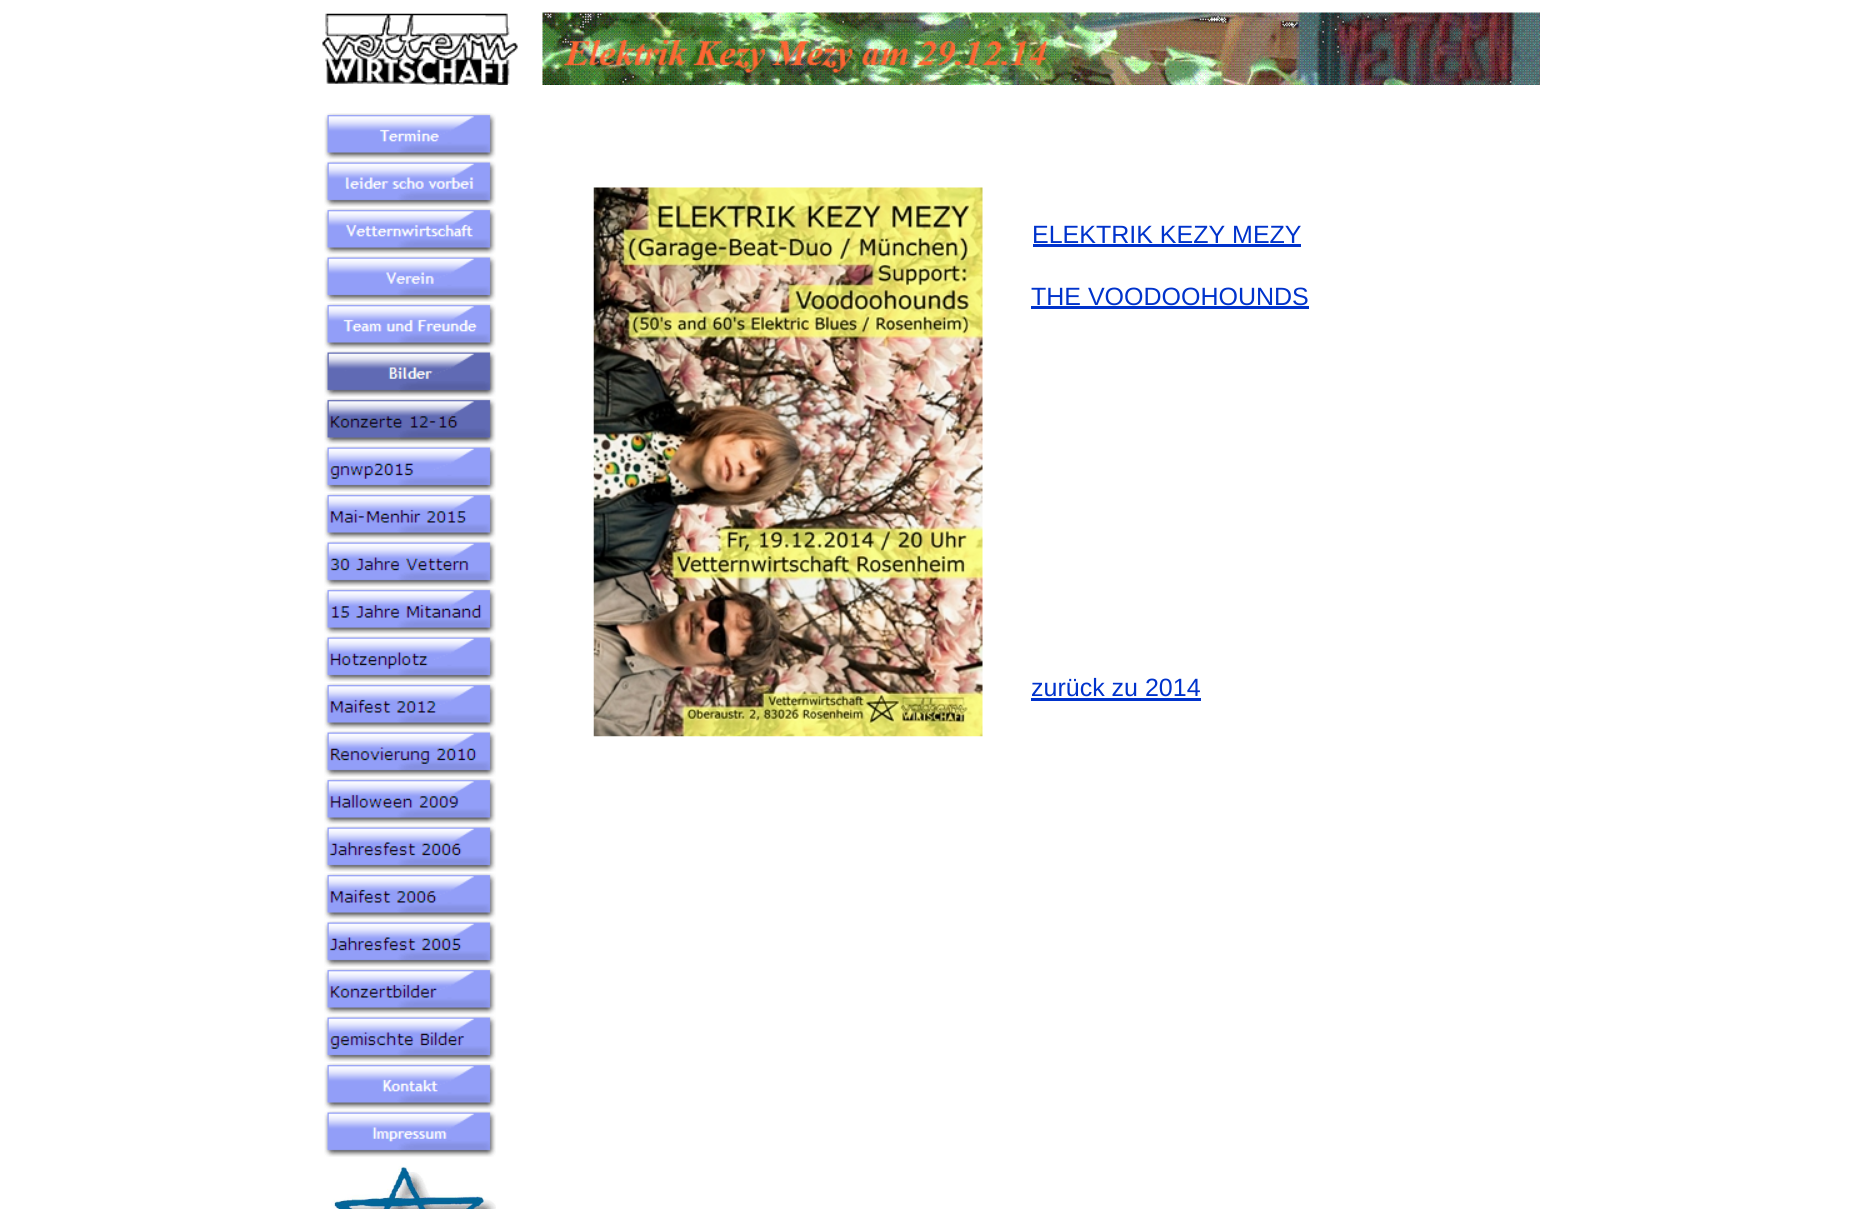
#include <cairo/cairo.h>
#include <math.h>
#include <stddef.h>

typedef struct { double x, y; const char *s; } line_t;
typedef struct { double x, y, w, h; unsigned color; } box_t;
static cairo_t *cr;

static void rgb(unsigned color)
{
	cairo_set_source_rgb(cr, (color >> 16) / 255.0, (color >> 8 & 255) / 255.0, (color & 255) / 255.0);
}

static void image(const char *path, double x, double y, double w, double h)
{
	cairo_surface_t *image = cairo_image_surface_create_from_png(path);
	cairo_save(cr);
	cairo_set_source_surface(cr, image, x, y);
	cairo_rectangle(cr, x, y, w, h);
	cairo_fill(cr);
	cairo_restore(cr);
	cairo_surface_destroy(image);
}

int main(void) {
	cairo_surface_t *surface = cairo_image_surface_create(CAIRO_FORMAT_RGB24, 1863, 1209);
	cr = cairo_create(surface);
	cairo_font_options_t *options = cairo_font_options_create();
	cairo_font_options_set_hint_metrics(options, CAIRO_HINT_METRICS_OFF);
	cairo_font_options_set_hint_style(options, CAIRO_HINT_STYLE_NONE);
	cairo_set_font_options(cr, options);
	cairo_set_miter_limit(cr, 4);
	rgb(0xffffff);
	cairo_paint(cr);
	image("img/1.png", 322, 13, 196, 72);
	image("img/2.png", 324, 113, 172, 47);
	image("img/3.png", 324, 160, 172, 47);
	image("img/4.png", 324, 208, 172, 47);
	image("img/5.png", 324, 255, 172, 47);
	image("img/6.png", 324, 303, 172, 47);
	image("img/7.png", 324, 350, 172, 47);
	image("img/8.png", 324, 398, 172, 47);
	image("img/9.png", 324, 445, 172, 47);
	image("img/10.png", 324, 493, 172, 47);
	image("img/11.png", 324, 540, 172, 47);
	image("img/12.png", 324, 588, 172, 47);
	image("img/13.png", 324, 635, 172, 47);
	image("img/14.png", 324, 683, 172, 47);
	image("img/15.png", 324, 730, 172, 47);
	image("img/16.png", 324, 778, 172, 47);
	image("img/17.png", 324, 825, 172, 47);
	image("img/18.png", 324, 873, 172, 47);
	image("img/19.png", 324, 920, 172, 47);
	image("img/20.png", 324, 968, 172, 47);
	image("img/21.png", 324, 1015, 172, 47);
	image("img/22.png", 324, 1063, 172, 47);
	image("img/23.png", 324, 1110, 172, 47);
	image("img/24.png", 331, 1166, 165, 43);
	image("img/25.png", 542, 12, 998, 73);
	image("img/26.png", 593, 187, 390, 550);
	{
		static const box_t items[] = {
			{1033, 244, 268, 3, 0x0033cc},
			{1031, 306, 278, 3, 0x0033cc},
			{1031, 698, 170, 3, 0x0033cc},
		};
		for (size_t i = 0; i < sizeof items / sizeof *items; i++) {
			rgb(items[i].color);
			cairo_rectangle(cr, items[i].x, items[i].y, items[i].w, items[i].h);
			cairo_fill(cr);
		}
	}
	cairo_select_font_face(cr, "Liberation Sans", CAIRO_FONT_SLANT_NORMAL, CAIRO_FONT_WEIGHT_NORMAL);
	cairo_set_font_size(cr, 25);
	{
		static const line_t items[] = {
			{1032, 243, "ELEKTRIK KEZY MEZY"},
			{1031, 305, "THE VOODOOHOUNDS"},
			{1031, 696, "zurück zu 2014"},
		};
		for (size_t i = 0; i < sizeof items / sizeof *items; i++) {
			cairo_move_to(cr, items[i].x, items[i].y);
			cairo_show_text(cr, items[i].s);
		}
	}
	cairo_surface_write_to_png(surface, "page.png");
	cairo_font_options_destroy(options);
	cairo_destroy(cr);
	cairo_surface_destroy(surface);
	return 0;
}
